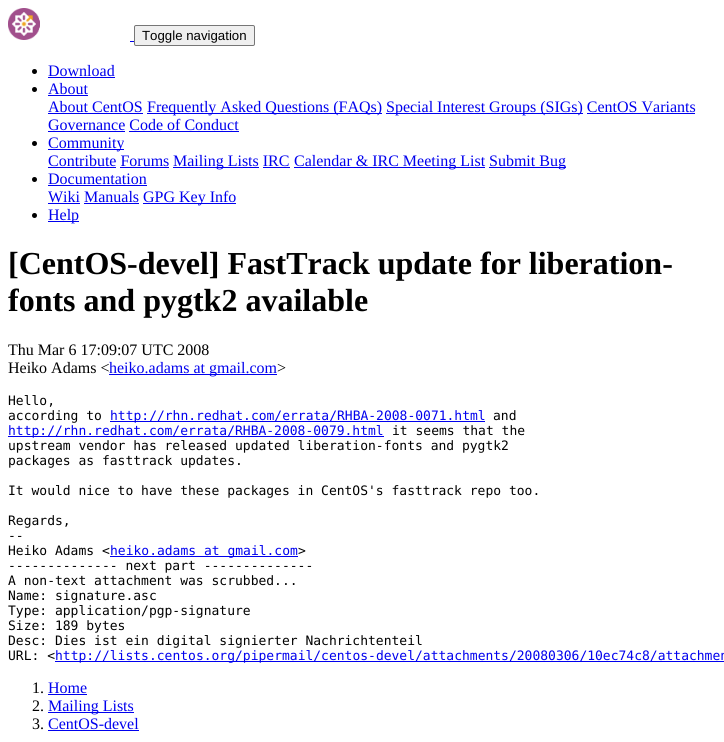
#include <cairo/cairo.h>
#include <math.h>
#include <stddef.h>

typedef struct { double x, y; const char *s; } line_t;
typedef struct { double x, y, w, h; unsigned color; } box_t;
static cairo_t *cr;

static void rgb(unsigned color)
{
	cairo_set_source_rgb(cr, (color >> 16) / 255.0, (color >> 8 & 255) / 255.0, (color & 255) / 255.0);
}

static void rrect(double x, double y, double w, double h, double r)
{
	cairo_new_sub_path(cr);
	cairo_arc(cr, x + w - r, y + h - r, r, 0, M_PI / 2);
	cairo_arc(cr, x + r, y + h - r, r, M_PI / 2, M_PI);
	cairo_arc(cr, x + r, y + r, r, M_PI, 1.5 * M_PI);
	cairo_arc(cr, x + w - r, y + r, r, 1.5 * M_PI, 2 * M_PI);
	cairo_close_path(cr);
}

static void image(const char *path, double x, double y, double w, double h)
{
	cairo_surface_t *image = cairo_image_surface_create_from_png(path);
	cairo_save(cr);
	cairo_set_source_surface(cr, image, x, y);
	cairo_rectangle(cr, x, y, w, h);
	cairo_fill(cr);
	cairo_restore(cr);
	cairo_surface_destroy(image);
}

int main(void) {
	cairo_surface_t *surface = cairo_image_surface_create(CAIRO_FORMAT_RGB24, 724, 742);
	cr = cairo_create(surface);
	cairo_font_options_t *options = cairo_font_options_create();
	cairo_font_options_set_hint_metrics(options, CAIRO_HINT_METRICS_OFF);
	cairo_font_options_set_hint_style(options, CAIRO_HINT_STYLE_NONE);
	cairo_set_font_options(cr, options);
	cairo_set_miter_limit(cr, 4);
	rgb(0xffffff);
	cairo_paint(cr);
	image("img/1.png", 8, 8, 32, 32);
	rgb(0x0000ee);
	cairo_rectangle(cr, 130, 41, 4, 1);
	cairo_fill(cr);
	rgb(0xefefef);
	rrect(134.5, 25.5, 120, 20, 1.5);
	cairo_fill_preserve(cr);
	rgb(0x767676);
	cairo_set_line_width(cr, 1);
	cairo_stroke(cr);
	rgb(0x000000);
	cairo_arc(cr, 34.5, 71.5, 2.5, 0, 2 * M_PI);
	cairo_fill(cr);
	rgb(0x0000ee);
	cairo_rectangle(cr, 48, 77, 67, 1);
	cairo_fill(cr);
	rgb(0x000000);
	cairo_arc(cr, 34.5, 89.5, 2.5, 0, 2 * M_PI);
	cairo_fill(cr);
	{
		static const box_t items[] = {
			{48, 95, 40, 1, 0x0000ee},
			{48, 113, 95, 1, 0x0000ee},
			{147, 113, 235, 1, 0x0000ee},
			{386, 113, 197, 1, 0x0000ee},
			{587, 113, 108, 1, 0x0000ee},
			{48, 131, 77, 1, 0x0000ee},
			{129, 131, 110, 1, 0x0000ee},
		};
		for (size_t i = 0; i < sizeof items / sizeof *items; i++) {
			rgb(items[i].color);
			cairo_rectangle(cr, items[i].x, items[i].y, items[i].w, items[i].h);
			cairo_fill(cr);
		}
	}
	rgb(0x000000);
	cairo_arc(cr, 34.5, 143.5, 2.5, 0, 2 * M_PI);
	cairo_fill(cr);
	{
		static const box_t items[] = {
			{48, 149, 76, 1, 0x0000ee},
			{48, 167, 68, 1, 0x0000ee},
			{173, 167, 86, 1, 0x0000ee},
			{294, 167, 191, 1, 0x0000ee},
			{489, 167, 77, 1, 0x0000ee},
			{120, 167, 49, 1, 0x0000ee},
			{263, 167, 27, 1, 0x0000ee},
		};
		for (size_t i = 0; i < sizeof items / sizeof *items; i++) {
			rgb(items[i].color);
			cairo_rectangle(cr, items[i].x, items[i].y, items[i].w, items[i].h);
			cairo_fill(cr);
		}
	}
	rgb(0x000000);
	cairo_arc(cr, 34.5, 179.5, 2.5, 0, 2 * M_PI);
	cairo_fill(cr);
	{
		static const box_t items[] = {
			{48, 185, 99, 1, 0x0000ee},
			{48, 203, 32, 1, 0x0000ee},
			{143, 203, 93, 1, 0x0000ee},
			{84, 203, 55, 1, 0x0000ee},
		};
		for (size_t i = 0; i < sizeof items / sizeof *items; i++) {
			rgb(items[i].color);
			cairo_rectangle(cr, items[i].x, items[i].y, items[i].w, items[i].h);
			cairo_fill(cr);
		}
	}
	rgb(0x000000);
	cairo_arc(cr, 34.5, 215.5, 2.5, 0, 2 * M_PI);
	cairo_fill(cr);
	{
		static const box_t items[] = {
			{48, 221, 31, 1, 0x0000ee},
			{109, 374, 168, 1, 0x0000ee},
			{110, 421, 375, 1, 0x0000ee},
			{8, 436, 376, 1, 0x0000ee},
			{110, 556, 188, 1, 0x0000ee},
			{55, 661, 669, 1, 0x0000ee},
			{48, 694, 39, 1, 0x0000ee},
			{48, 712, 86, 1, 0x0000ee},
			{48, 730, 91, 1, 0x0000ee},
		};
		for (size_t i = 0; i < sizeof items / sizeof *items; i++) {
			rgb(items[i].color);
			cairo_rectangle(cr, items[i].x, items[i].y, items[i].w, items[i].h);
			cairo_fill(cr);
		}
	}
	cairo_select_font_face(cr, "Liberation Sans", CAIRO_FONT_SLANT_NORMAL, CAIRO_FONT_WEIGHT_NORMAL);
	cairo_set_font_size(cr, 13.25);
	rgb(0x000000);
	cairo_move_to(cr, 142, 40);
	cairo_show_text(cr, "Toggle navigation");
	cairo_select_font_face(cr, "Liberation Serif", CAIRO_FONT_SLANT_NORMAL, CAIRO_FONT_WEIGHT_NORMAL);
	cairo_set_font_size(cr, 16);
	rgb(0x0000ee);
	{
		static const line_t items[] = {
			{48, 76, "Download"},
			{48, 94, "About"},
			{48, 112, "About CentOS"},
			{147, 112, "Frequently Asked Questions (FAQs)"},
			{386, 112, "Special Interest Groups (SIGs) CentOS Variants"},
			{48, 130, "Governance Code of Conduct"},
			{48, 148, "Community"},
			{48, 166, "Contribute Forums"},
			{173, 166, "Mailing Lists IRC"},
			{294, 166, "Calendar & IRC Meeting List"},
			{489, 166, "Submit Bug"},
			{48, 184, "Documentation"},
			{48, 202, "Wiki Manuals"},
			{143, 202, "GPG Key Info"},
			{48, 220, "Help"},
		};
		for (size_t i = 0; i < sizeof items / sizeof *items; i++) {
			cairo_move_to(cr, items[i].x, items[i].y);
			cairo_show_text(cr, items[i].s);
		}
	}
	cairo_select_font_face(cr, "Liberation Serif", CAIRO_FONT_SLANT_NORMAL, CAIRO_FONT_WEIGHT_BOLD);
	cairo_set_font_size(cr, 32);
	rgb(0x000000);
	cairo_move_to(cr, 8, 274);
	cairo_show_text(cr, "[CentOS-devel] FastTrack update for liberation-");
	cairo_move_to(cr, 8, 311);
	cairo_show_text(cr, "fonts and pygtk2 available");
	cairo_select_font_face(cr, "Liberation Serif", CAIRO_FONT_SLANT_NORMAL, CAIRO_FONT_WEIGHT_NORMAL);
	cairo_set_font_size(cr, 16);
	cairo_move_to(cr, 8, 355);
	cairo_show_text(cr, "Thu Mar 6 17:09:07 UTC 2008");
	cairo_move_to(cr, 8, 373);
	cairo_show_text(cr, "Heiko Adams <");
	rgb(0x0000ee);
	cairo_move_to(cr, 109, 373);
	cairo_show_text(cr, "heiko.adams at gmail.com");
	rgb(0x000000);
	cairo_move_to(cr, 277, 373);
	cairo_show_text(cr, ">");
	cairo_select_font_face(cr, "DejaVu Sans Mono", CAIRO_FONT_SLANT_NORMAL, CAIRO_FONT_WEIGHT_NORMAL);
	cairo_set_font_size(cr, 13);
	cairo_move_to(cr, 8, 405);
	cairo_show_text(cr, "Hello,");
	cairo_move_to(cr, 8, 420);
	cairo_show_text(cr, "according to");
	rgb(0x0000ee);
	cairo_move_to(cr, 110, 420);
	cairo_show_text(cr, "http://rhn.redhat.com/errata/RHBA-2008-0071.html");
	rgb(0x000000);
	cairo_move_to(cr, 493, 420);
	cairo_show_text(cr, "and");
	rgb(0x0000ee);
	cairo_move_to(cr, 8, 435);
	cairo_show_text(cr, "http://rhn.redhat.com/errata/RHBA-2008-0079.html");
	rgb(0x000000);
	{
		static const line_t items[] = {
			{392, 435, "it seems that the"},
			{8, 450, "upstream vendor has released updated liberation-fonts and pygtk2"},
			{8, 465, "packages as fasttrack updates."},
			{8, 495, "It would nice to have these packages in CentOS's fasttrack repo too."},
			{8, 525, "Regards,"},
			{8, 540, "--"},
			{8, 555, "Heiko Adams <"},
		};
		for (size_t i = 0; i < sizeof items / sizeof *items; i++) {
			cairo_move_to(cr, items[i].x, items[i].y);
			cairo_show_text(cr, items[i].s);
		}
	}
	rgb(0x0000ee);
	cairo_move_to(cr, 110, 555);
	cairo_show_text(cr, "heiko.adams at gmail.com");
	rgb(0x000000);
	{
		static const line_t items[] = {
			{298, 555, ">"},
			{8, 570, "-------------- next part --------------"},
			{8, 585, "A non-text attachment was scrubbed..."},
			{8, 600, "Name: signature.asc"},
			{8, 615, "Type: application/pgp-signature"},
			{8, 630, "Size: 189 bytes"},
			{8, 645, "Desc: Dies ist ein digital signierter Nachrichtenteil"},
			{8, 660, "URL: <"},
		};
		for (size_t i = 0; i < sizeof items / sizeof *items; i++) {
			cairo_move_to(cr, items[i].x, items[i].y);
			cairo_show_text(cr, items[i].s);
		}
	}
	rgb(0x0000ee);
	cairo_move_to(cr, 55, 660);
	cairo_show_text(cr, "http://lists.centos.org/pipermail/centos-devel/attachments/20080306/10ec74c8/attachmen");
	cairo_select_font_face(cr, "Liberation Serif", CAIRO_FONT_SLANT_NORMAL, CAIRO_FONT_WEIGHT_NORMAL);
	cairo_set_font_size(cr, 16);
	rgb(0x000000);
	cairo_move_to(cr, 32, 693);
	cairo_show_text(cr, "1.");
	rgb(0x0000ee);
	cairo_move_to(cr, 48, 693);
	cairo_show_text(cr, "Home");
	rgb(0x000000);
	cairo_move_to(cr, 32, 711);
	cairo_show_text(cr, "2.");
	rgb(0x0000ee);
	cairo_move_to(cr, 48, 711);
	cairo_show_text(cr, "Mailing Lists");
	rgb(0x000000);
	cairo_move_to(cr, 32, 729);
	cairo_show_text(cr, "3.");
	rgb(0x0000ee);
	cairo_move_to(cr, 48, 729);
	cairo_show_text(cr, "CentOS-devel");
	cairo_surface_write_to_png(surface, "page.png");
	cairo_font_options_destroy(options);
	cairo_destroy(cr);
	cairo_surface_destroy(surface);
	return 0;
}
